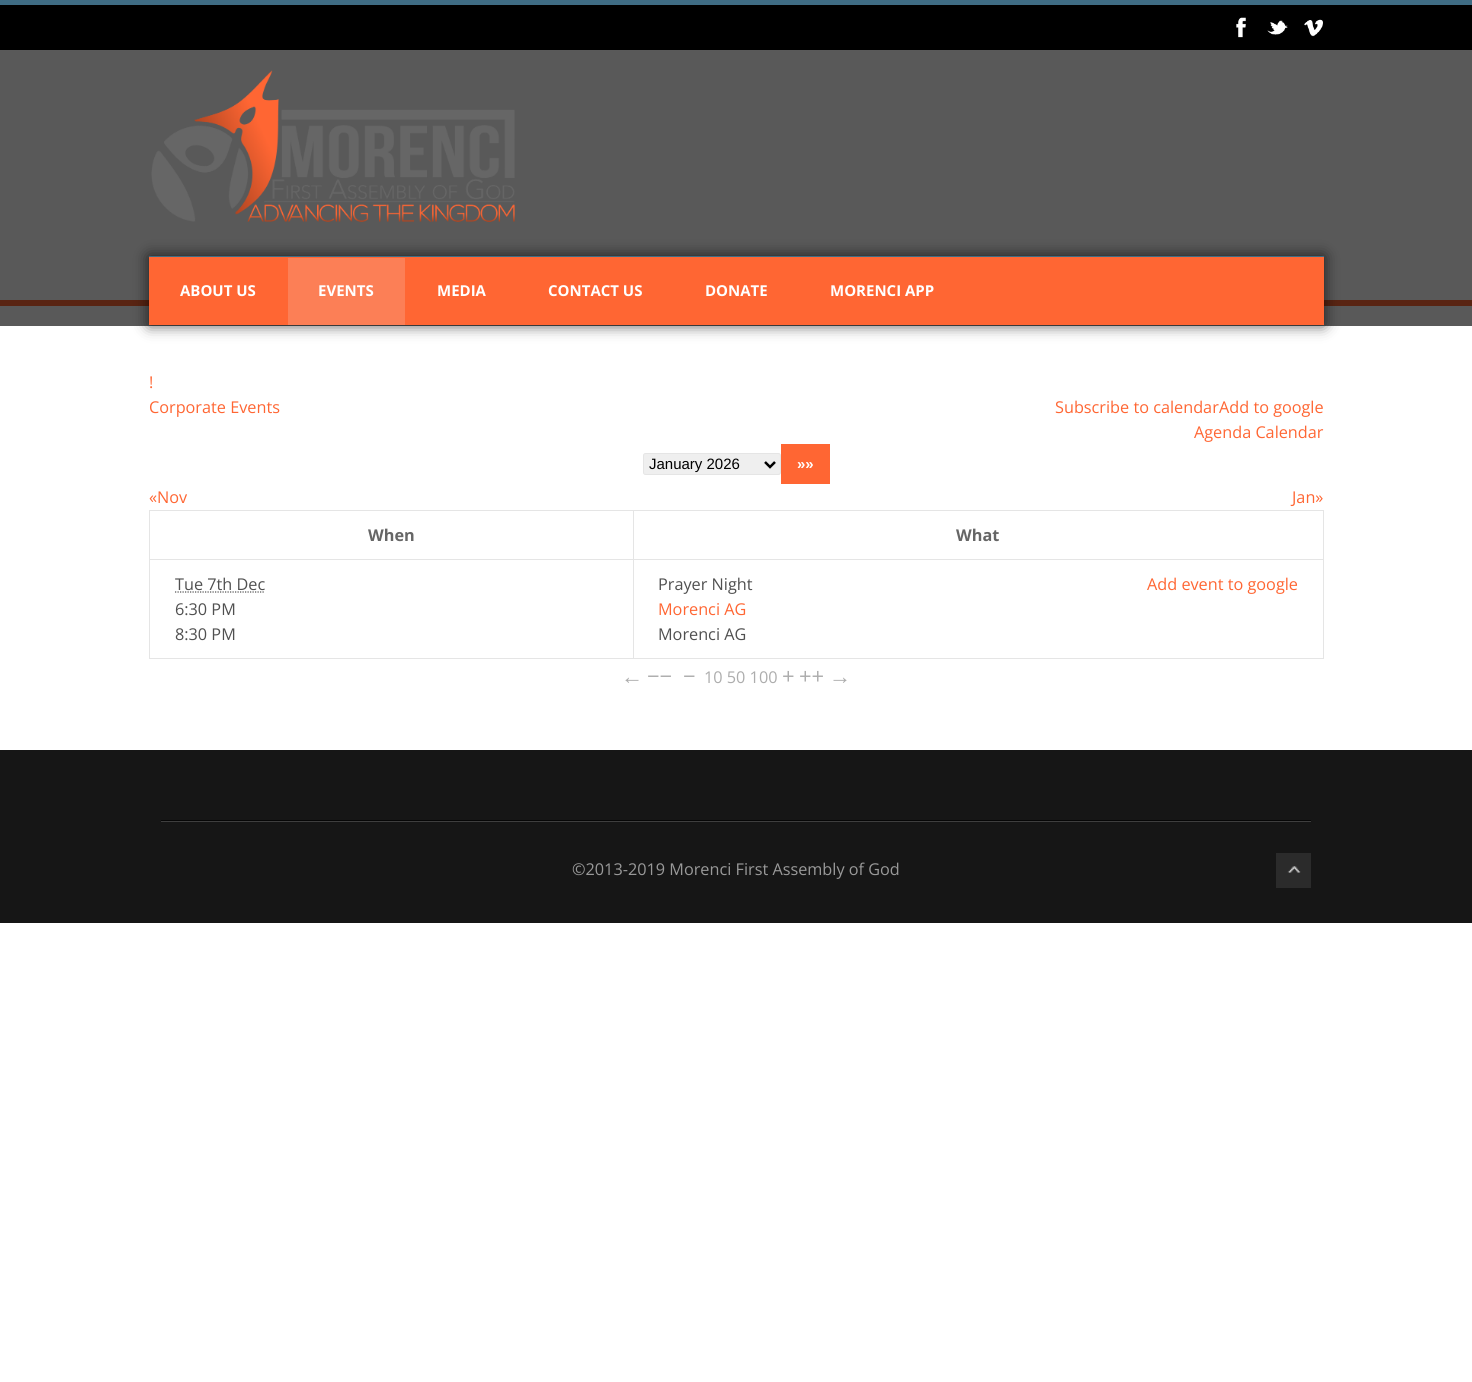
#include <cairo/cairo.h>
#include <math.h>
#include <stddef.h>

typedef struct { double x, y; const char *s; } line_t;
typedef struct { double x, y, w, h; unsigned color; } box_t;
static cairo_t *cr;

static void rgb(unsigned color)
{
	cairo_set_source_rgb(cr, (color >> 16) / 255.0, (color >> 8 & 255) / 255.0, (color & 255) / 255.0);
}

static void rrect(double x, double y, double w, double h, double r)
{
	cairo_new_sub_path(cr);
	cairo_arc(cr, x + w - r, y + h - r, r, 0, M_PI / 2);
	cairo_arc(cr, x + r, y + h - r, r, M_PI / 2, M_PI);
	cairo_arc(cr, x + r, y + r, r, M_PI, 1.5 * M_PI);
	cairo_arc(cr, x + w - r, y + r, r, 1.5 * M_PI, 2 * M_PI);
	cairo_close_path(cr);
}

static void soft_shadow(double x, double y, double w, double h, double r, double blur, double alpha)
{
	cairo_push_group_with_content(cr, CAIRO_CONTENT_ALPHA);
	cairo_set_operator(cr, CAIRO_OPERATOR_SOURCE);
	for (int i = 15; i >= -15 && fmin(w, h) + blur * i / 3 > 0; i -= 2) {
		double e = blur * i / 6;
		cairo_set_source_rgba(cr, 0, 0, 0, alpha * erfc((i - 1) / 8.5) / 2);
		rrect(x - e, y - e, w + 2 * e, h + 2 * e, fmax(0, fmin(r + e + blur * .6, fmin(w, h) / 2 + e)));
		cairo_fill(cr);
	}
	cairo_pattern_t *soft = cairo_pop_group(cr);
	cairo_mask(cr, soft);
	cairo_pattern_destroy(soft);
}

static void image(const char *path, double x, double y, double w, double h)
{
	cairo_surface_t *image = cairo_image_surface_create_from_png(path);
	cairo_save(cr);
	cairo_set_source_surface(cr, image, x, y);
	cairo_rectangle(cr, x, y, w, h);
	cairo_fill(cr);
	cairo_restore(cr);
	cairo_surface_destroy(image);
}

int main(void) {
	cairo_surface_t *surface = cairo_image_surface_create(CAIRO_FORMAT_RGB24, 1472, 1382);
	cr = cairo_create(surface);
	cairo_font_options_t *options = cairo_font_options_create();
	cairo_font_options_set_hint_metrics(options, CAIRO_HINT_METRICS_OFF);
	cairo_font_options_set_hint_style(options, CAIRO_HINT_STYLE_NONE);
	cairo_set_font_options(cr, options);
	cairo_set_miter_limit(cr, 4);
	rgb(0xffffff);
	cairo_paint(cr);
	{
		static const box_t items[] = {
			{0, 50, 1472, 276, 0x595959},
			{0, 5, 1472, 45, 0x000000},
			{0, 0, 1472, 5, 0x3f6c84},
		};
		for (size_t i = 0; i < sizeof items / sizeof *items; i++) {
			rgb(items[i].color);
			cairo_rectangle(cr, items[i].x, items[i].y, items[i].w, items[i].h);
			cairo_fill(cr);
		}
	}
	image("img/1.png", 1236, 17, 10, 21);
	image("img/2.png", 1267, 20, 21, 15);
	image("img/3.png", 1304, 19, 19, 18);
	image("img/4.png", 151, 70, 364, 152);
	rgb(0x592412);
	cairo_rectangle(cr, 0, 300, 1472, 6);
	cairo_fill(cr);
	rgb(0x000000);
	soft_shadow(149, 256, 1175, 69, 0, 7.5, 0.7);
	{
		static const box_t items[] = {
			{149, 257, 1175, 68, 0xff6633},
			{149, 256, 1175, 1, 0x3f6c84},
			{288, 258, 117, 67, 0xfc7f56},
		};
		for (size_t i = 0; i < sizeof items / sizeof *items; i++) {
			rgb(items[i].color);
			cairo_rectangle(cr, items[i].x, items[i].y, items[i].w, items[i].h);
			cairo_fill(cr);
		}
	}
	rgb(0xefefef);
	rrect(643.5, 453.5, 137, 21, 2);
	cairo_fill_preserve(cr);
	rgb(0xe5e5e5);
	cairo_set_line_width(cr, 1);
	cairo_stroke(cr);
	cairo_new_path(cr);
	cairo_move_to(cr, 765, 462);
	cairo_line_to(cr, 770, 467);
	cairo_line_to(cr, 775, 462);
	rgb(0x000000);
	cairo_set_line_width(cr, 2.5);
	cairo_stroke(cr);
	{
		static const box_t items[] = {
			{781, 444, 49, 40, 0xff6633},
			{149, 510, 1175, 1, 0xe5e5e5},
			{1323, 510, 1, 149, 0xe5e5e5},
			{149, 658, 1175, 1, 0xe5e5e5},
			{149, 510, 1, 149, 0xe5e5e5},
			{633, 559, 1, 100, 0xe5e5e5},
			{633, 559, 691, 1, 0xe5e5e5},
			{633, 510, 1, 50, 0xe5e5e5},
			{149, 559, 485, 1, 0xe5e5e5},
		};
		for (size_t i = 0; i < sizeof items / sizeof *items; i++) {
			rgb(items[i].color);
			cairo_rectangle(cr, items[i].x, items[i].y, items[i].w, items[i].h);
			cairo_fill(cr);
		}
	}
	cairo_new_path(cr);
	cairo_move_to(cr, 175, 592);
	cairo_line_to(cr, 265, 592);
	rgb(0x505050);
	cairo_set_line_width(cr, 1.2);
	cairo_set_dash(cr, (double[]){1.25, 1.25}, 2, 0);
	cairo_stroke(cr);
	{
		static const box_t items[] = {
			{0, 750, 1472, 173, 0x161616},
			{161, 820, 1150, 1, 0x060606},
			{161, 821, 1150, 1, 0x3e3e3e},
			{1276, 853, 35, 35, 0x2b2b2b},
		};
		for (size_t i = 0; i < sizeof items / sizeof *items; i++) {
			rgb(items[i].color);
			cairo_rectangle(cr, items[i].x, items[i].y, items[i].w, items[i].h);
			cairo_fill(cr);
		}
	}
	image("img/5.png", 1287, 866, 14, 7);
	cairo_select_font_face(cr, "Open Sans", CAIRO_FONT_SLANT_NORMAL, CAIRO_FONT_WEIGHT_BOLD);
	cairo_set_font_size(cr, 15);
	rgb(0xffffff);
	{
		static const line_t items[] = {
			{180, 296, "ABOUT US"},
			{318, 296, "EVENTS"},
			{437, 296, "MEDIA"},
			{548, 296, "CONTACT US"},
			{705, 296, "DONATE"},
			{830, 296, "MORENCI APP"},
		};
		for (size_t i = 0; i < sizeof items / sizeof *items; i++) {
			cairo_move_to(cr, items[i].x, items[i].y);
			cairo_show_text(cr, items[i].s);
		}
	}
	cairo_select_font_face(cr, "Open Sans", CAIRO_FONT_SLANT_NORMAL, CAIRO_FONT_WEIGHT_NORMAL);
	cairo_set_font_size(cr, 16.25);
	rgb(0xff6633);
	{
		static const line_t items[] = {
			{149, 388, "!"},
			{149, 413, "Corporate Events"},
			{1055, 413, "Subscribe to calendar"},
			{1219, 413, "Add to google"},
			{1194, 438, "Agenda Calendar"},
		};
		for (size_t i = 0; i < sizeof items / sizeof *items; i++) {
			cairo_move_to(cr, items[i].x, items[i].y);
			cairo_show_text(cr, items[i].s);
		}
	}
	cairo_select_font_face(cr, "Liberation Sans", CAIRO_FONT_SLANT_NORMAL, CAIRO_FONT_WEIGHT_NORMAL);
	cairo_set_font_size(cr, 15);
	rgb(0x000000);
	cairo_move_to(cr, 649, 469);
	cairo_show_text(cr, "January 2026");
	cairo_select_font_face(cr, "Liberation Sans", CAIRO_FONT_SLANT_NORMAL, CAIRO_FONT_WEIGHT_BOLD);
	rgb(0xffffff);
	cairo_move_to(cr, 797, 469);
	cairo_show_text(cr, "»»");
	cairo_select_font_face(cr, "Open Sans", CAIRO_FONT_SLANT_NORMAL, CAIRO_FONT_WEIGHT_NORMAL);
	cairo_set_font_size(cr, 16.25);
	rgb(0xff6633);
	cairo_move_to(cr, 149, 503);
	cairo_show_text(cr, "«Nov");
	cairo_move_to(cr, 1292, 503);
	cairo_show_text(cr, "Jan»");
	cairo_select_font_face(cr, "Open Sans", CAIRO_FONT_SLANT_NORMAL, CAIRO_FONT_WEIGHT_BOLD);
	rgb(0x666666);
	cairo_move_to(cr, 368, 541);
	cairo_show_text(cr, "When");
	cairo_move_to(cr, 956, 541);
	cairo_show_text(cr, "What");
	cairo_select_font_face(cr, "Open Sans", CAIRO_FONT_SLANT_NORMAL, CAIRO_FONT_WEIGHT_NORMAL);
	rgb(0x505050);
	{
		static const line_t items[] = {
			{175, 590, "Tue 7th Dec"},
			{175, 615, "6:30 PM"},
			{175, 640, "8:30 PM"},
			{658, 590, "Prayer Night"},
		};
		for (size_t i = 0; i < sizeof items / sizeof *items; i++) {
			cairo_move_to(cr, items[i].x, items[i].y);
			cairo_show_text(cr, items[i].s);
		}
	}
	rgb(0xff6633);
	cairo_move_to(cr, 1147, 590);
	cairo_show_text(cr, "Add event to google");
	cairo_move_to(cr, 658, 615);
	cairo_show_text(cr, "Morenci AG");
	rgb(0x505050);
	cairo_move_to(cr, 658, 640);
	cairo_show_text(cr, "Morenci AG");
	cairo_set_font_size(cr, 22);
	rgb(0xadadad);
	cairo_move_to(cr, 647, 684);
	cairo_show_text(cr, "−−");
	cairo_move_to(cr, 683, 684);
	cairo_show_text(cr, "−");
	cairo_set_font_size(cr, 16.25);
	cairo_move_to(cr, 704, 683);
	cairo_show_text(cr, "10 50 100");
	cairo_set_font_size(cr, 22);
	cairo_move_to(cr, 782, 684);
	cairo_show_text(cr, "+");
	cairo_move_to(cr, 799, 684);
	cairo_show_text(cr, "++");
	cairo_select_font_face(cr, "Liberation Serif", CAIRO_FONT_SLANT_NORMAL, CAIRO_FONT_WEIGHT_NORMAL);
	cairo_move_to(cr, 621, 684);
	cairo_show_text(cr, "←");
	cairo_move_to(cr, 829, 684);
	cairo_show_text(cr, "→");
	cairo_select_font_face(cr, "Open Sans", CAIRO_FONT_SLANT_NORMAL, CAIRO_FONT_WEIGHT_NORMAL);
	cairo_set_font_size(cr, 16.25);
	rgb(0x999999);
	cairo_move_to(cr, 572, 875);
	cairo_show_text(cr, "©2013-2019 Morenci First Assembly of God");
	cairo_surface_write_to_png(surface, "page.png");
	cairo_font_options_destroy(options);
	cairo_destroy(cr);
	cairo_surface_destroy(surface);
	return 0;
}
